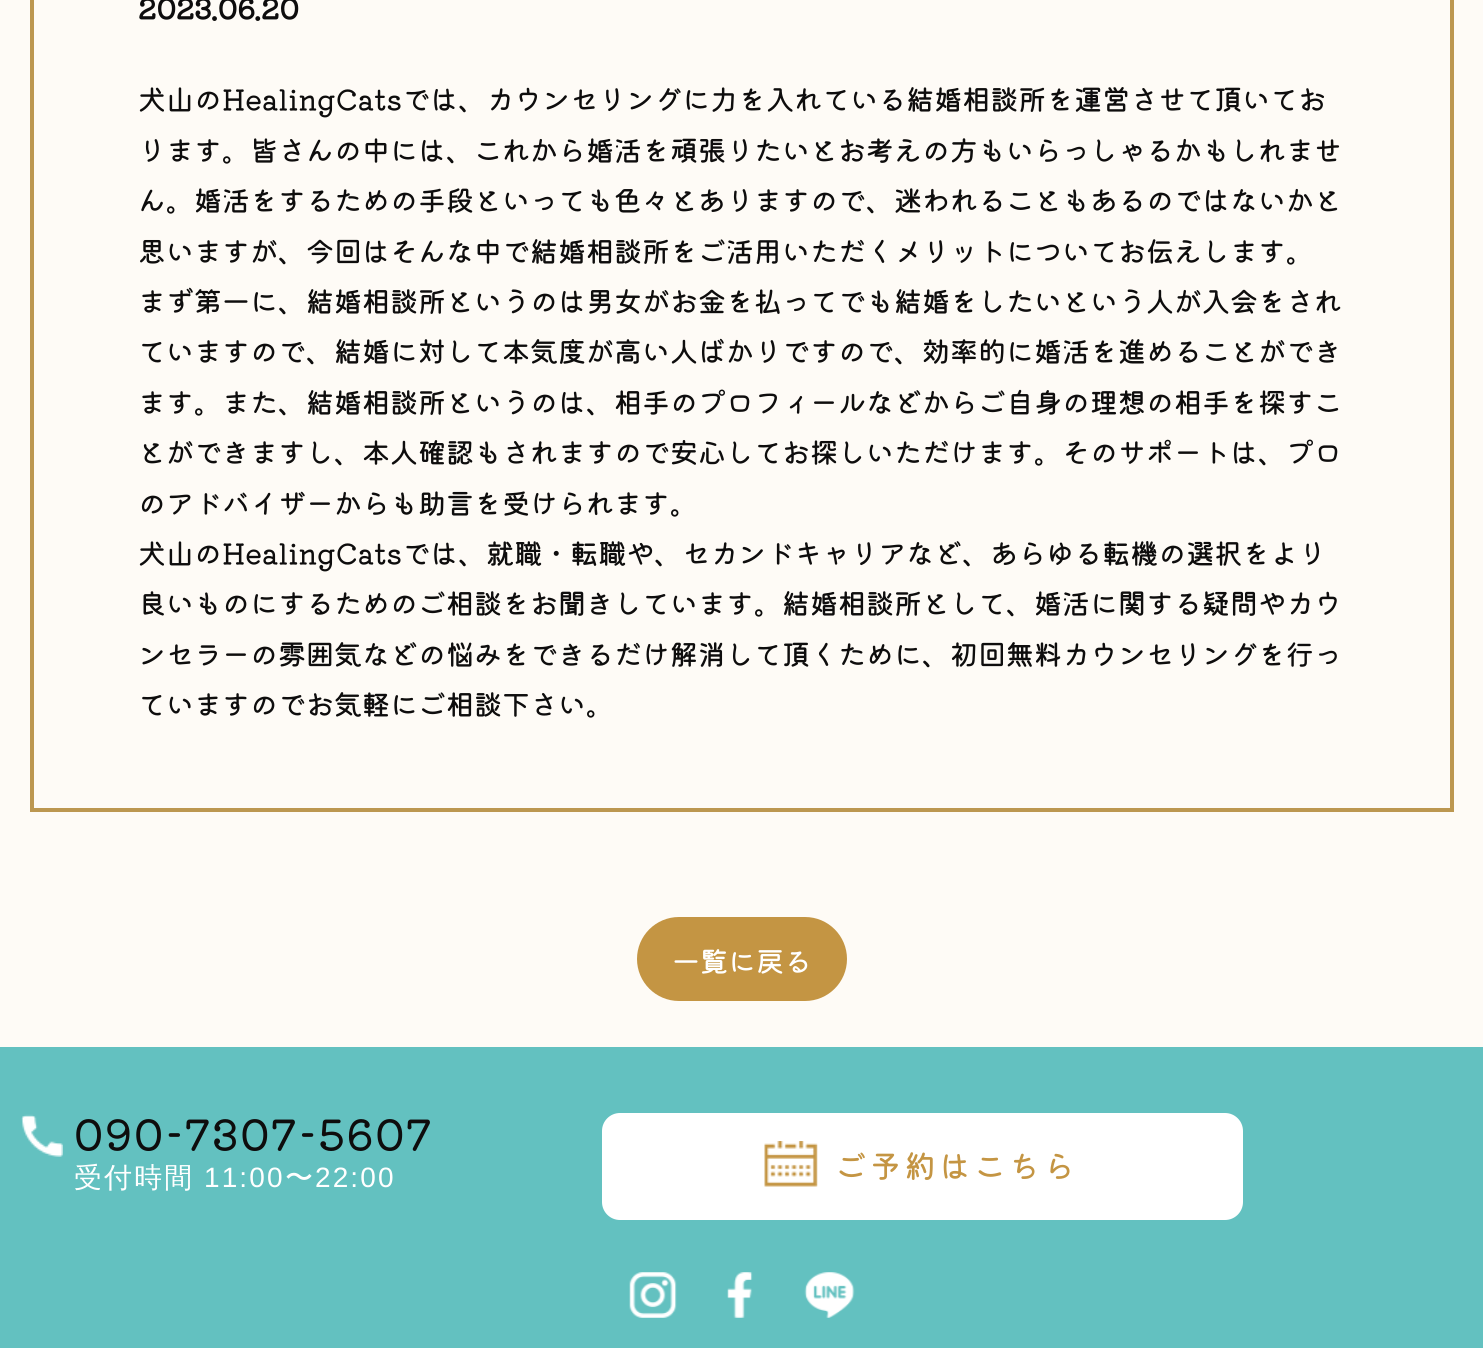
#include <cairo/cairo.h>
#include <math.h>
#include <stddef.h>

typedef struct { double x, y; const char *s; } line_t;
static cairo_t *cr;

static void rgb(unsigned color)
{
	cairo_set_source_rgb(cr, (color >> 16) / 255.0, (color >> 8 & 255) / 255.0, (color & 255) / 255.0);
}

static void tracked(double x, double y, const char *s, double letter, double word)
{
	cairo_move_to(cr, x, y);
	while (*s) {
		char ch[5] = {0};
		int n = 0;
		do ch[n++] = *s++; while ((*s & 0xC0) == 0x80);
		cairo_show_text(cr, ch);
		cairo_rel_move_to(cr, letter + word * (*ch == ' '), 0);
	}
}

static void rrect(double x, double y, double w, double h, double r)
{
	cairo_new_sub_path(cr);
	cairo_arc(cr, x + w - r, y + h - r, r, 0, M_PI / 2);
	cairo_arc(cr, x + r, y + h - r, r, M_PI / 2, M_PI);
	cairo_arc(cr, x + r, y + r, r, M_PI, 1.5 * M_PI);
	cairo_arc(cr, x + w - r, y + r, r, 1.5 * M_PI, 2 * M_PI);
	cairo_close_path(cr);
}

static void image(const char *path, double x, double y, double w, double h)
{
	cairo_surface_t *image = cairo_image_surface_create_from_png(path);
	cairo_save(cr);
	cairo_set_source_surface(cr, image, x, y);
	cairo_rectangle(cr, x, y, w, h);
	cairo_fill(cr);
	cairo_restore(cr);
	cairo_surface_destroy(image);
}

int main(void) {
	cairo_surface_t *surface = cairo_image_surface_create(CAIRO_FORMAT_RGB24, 1483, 1348);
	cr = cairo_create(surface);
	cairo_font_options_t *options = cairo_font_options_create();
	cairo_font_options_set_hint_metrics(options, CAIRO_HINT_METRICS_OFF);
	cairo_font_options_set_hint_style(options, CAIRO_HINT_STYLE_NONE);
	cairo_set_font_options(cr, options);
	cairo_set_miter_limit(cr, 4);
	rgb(0xfefbf6);
	cairo_paint(cr);
	cairo_rectangle(cr, 32, -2, 1420, 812);
	rgb(0xbc9750);
	cairo_set_line_width(cr, 4);
	cairo_stroke(cr);
	rgb(0xc49543);
	rrect(637, 917, 210, 84, 42);
	cairo_fill(cr);
	rgb(0x63c1c0);
	cairo_rectangle(cr, 0, 1047, 1483, 301);
	cairo_fill(cr);
	image("img/1.png", 21, 1114, 42, 43);
	rgb(0xffffff);
	rrect(602, 1113, 641, 107, 18);
	cairo_fill(cr);
	image("img/2.png", 764, 1141, 54, 46);
	image("img/3.png", 629, 1272, 48, 46);
	image("img/4.png", 727, 1272, 26, 46);
	image("img/5.png", 804, 1272, 51, 46);
	cairo_select_font_face(cr, "Kiwi Maru", CAIRO_FONT_SLANT_NORMAL, CAIRO_FONT_WEIGHT_BOLD);
	cairo_set_font_size(cr, 28);
	rgb(0x0e0d0d);
	cairo_move_to(cr, 138, 19);
	cairo_show_text(cr, "2023.06.20");
	cairo_select_font_face(cr, "Kiwi Maru Medium", CAIRO_FONT_SLANT_NORMAL, CAIRO_FONT_WEIGHT_NORMAL);
	{
		static const line_t items[] = {
			{138, 110, "犬山のHealingCatsでは、カウンセリングに力を入れている結婚相談所を運営させて頂いてお"},
			{138, 161, "ります。皆さんの中には、これから婚活を頑張りたいとお考えの方もいらっしゃるかもしれませ"},
			{138, 211, "ん。婚活をするための手段といっても色々とありますので、迷われることもあるのではないかと"},
			{138, 262, "思いますが、今回はそんな中で結婚相談所をご活用いただくメリットについてお伝えします。"},
			{138, 312, "まず第一に、結婚相談所というのは男女がお金を払ってでも結婚をしたいという人が入会をされ"},
			{138, 362, "ていますので、結婚に対して本気度が高い人ばかりですので、効率的に婚活を進めることができ"},
			{138, 413, "ます。また、結婚相談所というのは、相手のプロフィールなどからご自身の理想の相手を探すこ"},
			{138, 463, "とができますし、本人確認もされますので安心してお探しいただけます。そのサポートは、プロ"},
			{138, 514, "のアドバイザーからも助言を受けられます。"},
			{138, 564, "犬山のHealingCatsでは、就職・転職や、セカンドキャリアなど、あらゆる転機の選択をより"},
			{138, 614, "良いものにするためのご相談をお聞きしています。結婚相談所として、婚活に関する疑問やカウ"},
			{138, 665, "ンセラーの雰囲気などの悩みをできるだけ解消して頂くために、初回無料カウンセリングを行っ"},
			{138, 715, "ていますのでお気軽にご相談下さい。"},
		};
		for (size_t i = 0; i < sizeof items / sizeof *items; i++) {
			cairo_move_to(cr, items[i].x, items[i].y);
			cairo_show_text(cr, items[i].s);
		}
	}
	rgb(0xffffff);
	cairo_move_to(cr, 672, 972);
	cairo_show_text(cr, "一覧に戻る");
	cairo_set_font_size(cr, 42);
	rgb(0x0e0d0d);
	tracked(74, 1150, "090-7307-5607", 2.1, 0);
	cairo_select_font_face(cr, "WenQuanYi Zen Hei Medium", CAIRO_FONT_SLANT_NORMAL, CAIRO_FONT_WEIGHT_NORMAL);
	cairo_set_font_size(cr, 28);
	rgb(0xffffff);
	tracked(74, 1187, "受付時間", 2.1, 0);
	cairo_select_font_face(cr, "Liberation Sans", CAIRO_FONT_SLANT_NORMAL, CAIRO_FONT_WEIGHT_NORMAL);
	tracked(204, 1187, "11:00", 2.1, 0);
	cairo_select_font_face(cr, "WenQuanYi Zen Hei Medium", CAIRO_FONT_SLANT_NORMAL, CAIRO_FONT_WEIGHT_NORMAL);
	tracked(285, 1187, "〜", 2.1, 0);
	cairo_select_font_face(cr, "Liberation Sans", CAIRO_FONT_SLANT_NORMAL, CAIRO_FONT_WEIGHT_NORMAL);
	tracked(315, 1187, "22:00", 2.1, 0);
	cairo_select_font_face(cr, "Kiwi Maru Medium", CAIRO_FONT_SLANT_NORMAL, CAIRO_FONT_WEIGHT_NORMAL);
	cairo_set_font_size(cr, 31.5);
	rgb(0xc49543);
	tracked(835, 1178, "ご予約はこちら", 3.25, 0);
	cairo_surface_write_to_png(surface, "page.png");
	cairo_font_options_destroy(options);
	cairo_destroy(cr);
	cairo_surface_destroy(surface);
	return 0;
}
